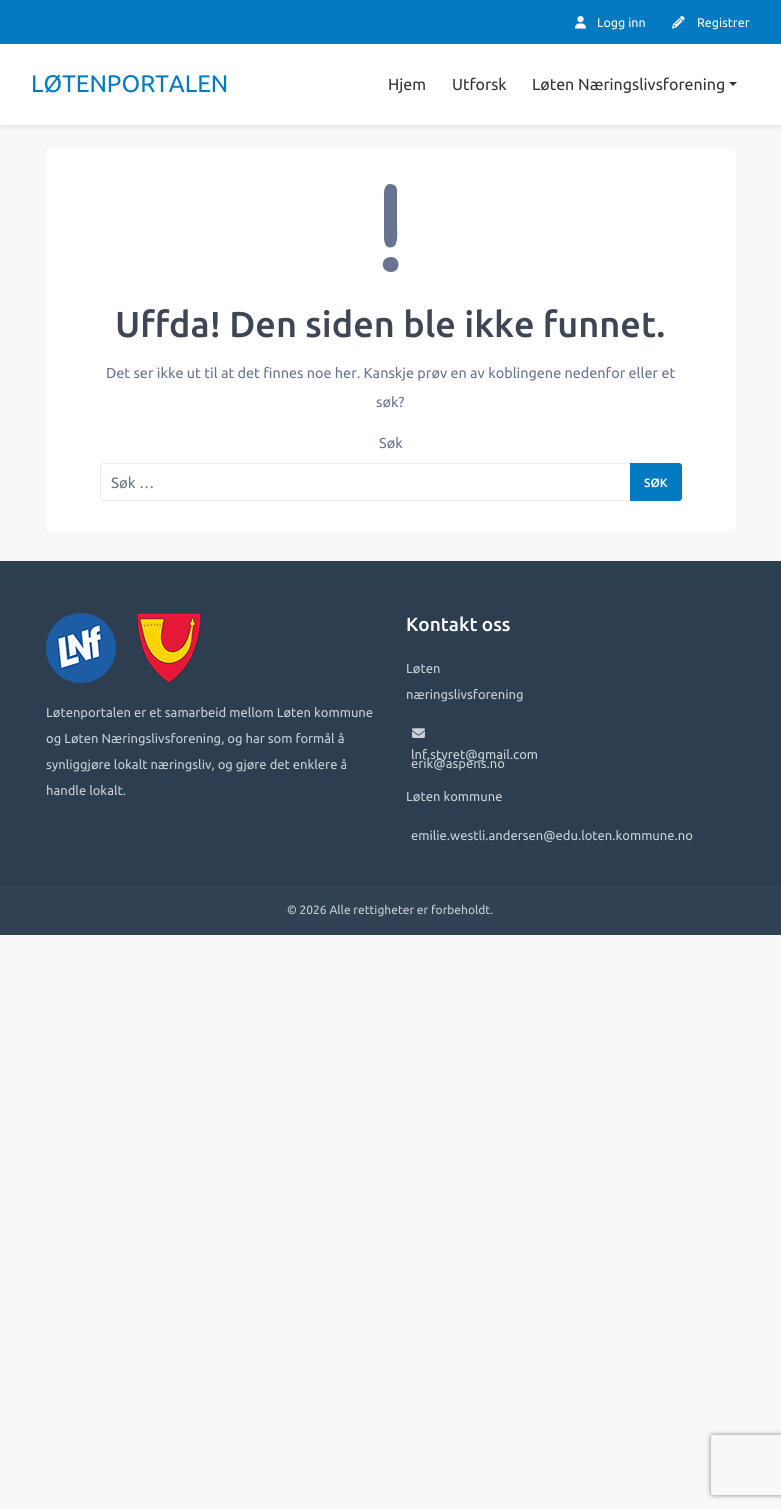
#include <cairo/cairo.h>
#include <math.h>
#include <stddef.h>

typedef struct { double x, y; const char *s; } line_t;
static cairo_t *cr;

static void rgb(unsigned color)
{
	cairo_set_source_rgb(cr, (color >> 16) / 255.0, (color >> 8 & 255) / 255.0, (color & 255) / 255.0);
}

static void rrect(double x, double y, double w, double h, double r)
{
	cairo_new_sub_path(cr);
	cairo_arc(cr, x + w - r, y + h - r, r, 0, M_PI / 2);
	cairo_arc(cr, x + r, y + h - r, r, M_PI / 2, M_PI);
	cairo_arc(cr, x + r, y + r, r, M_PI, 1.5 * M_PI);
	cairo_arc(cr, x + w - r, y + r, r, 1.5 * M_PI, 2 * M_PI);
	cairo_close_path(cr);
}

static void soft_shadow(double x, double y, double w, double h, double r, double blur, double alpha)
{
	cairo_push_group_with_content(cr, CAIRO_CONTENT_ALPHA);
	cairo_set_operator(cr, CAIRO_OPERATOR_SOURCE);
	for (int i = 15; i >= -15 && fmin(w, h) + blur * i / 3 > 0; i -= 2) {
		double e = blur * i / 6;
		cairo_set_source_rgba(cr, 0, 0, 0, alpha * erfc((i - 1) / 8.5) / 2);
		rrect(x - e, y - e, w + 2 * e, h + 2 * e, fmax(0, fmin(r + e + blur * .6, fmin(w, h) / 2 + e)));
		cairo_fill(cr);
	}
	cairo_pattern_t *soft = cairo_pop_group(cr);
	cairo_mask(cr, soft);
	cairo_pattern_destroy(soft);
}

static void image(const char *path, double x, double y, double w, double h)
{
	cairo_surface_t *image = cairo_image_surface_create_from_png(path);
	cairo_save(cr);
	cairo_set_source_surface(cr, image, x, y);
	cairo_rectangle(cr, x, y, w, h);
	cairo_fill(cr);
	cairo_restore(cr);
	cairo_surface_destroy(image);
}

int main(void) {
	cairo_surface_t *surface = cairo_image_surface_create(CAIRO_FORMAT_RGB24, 781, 1509);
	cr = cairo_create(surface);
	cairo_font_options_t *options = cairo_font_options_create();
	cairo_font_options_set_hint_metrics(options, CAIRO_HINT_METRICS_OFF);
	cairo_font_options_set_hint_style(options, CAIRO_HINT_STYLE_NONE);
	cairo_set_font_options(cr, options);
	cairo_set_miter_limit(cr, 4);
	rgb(0xf8f8f8);
	cairo_paint(cr);
	rgb(0x000000);
	soft_shadow(0, 44, 781, 81, 0, 4, 0.12);
	rgb(0x027ac1);
	cairo_rectangle(cr, 0, 0, 781, 44);
	cairo_fill(cr);
	image("img/1.png", 575, 16, 11, 13);
	image("img/2.png", 672, 16, 13, 13);
	rgb(0xffffff);
	cairo_rectangle(cr, 0, 44, 781, 81);
	cairo_fill(cr);
	rgb(0x333333);
	cairo_new_path(cr);
	cairo_move_to(cr, 729, 82);
	cairo_line_to(cr, 737, 82);
	cairo_line_to(cr, 733, 86);
	cairo_close_path(cr);
	cairo_fill(cr);
	rgb(0xffffff);
	rrect(46, 149, 690, 382, 4);
	cairo_fill(cr);
	rgb(0x697391);
	cairo_new_path(cr);
	cairo_move_to(cr, 397, 190);
	cairo_curve_to(cr, 397, 188, 396, 186, 394, 185);
	cairo_curve_to(cr, 392, 184, 390, 184, 389, 184);
	cairo_curve_to(cr, 383, 186, 384, 194, 384, 199);
	cairo_line_to(cr, 384, 232);
	cairo_curve_to(cr, 384, 238, 383, 250, 393, 247);
	cairo_curve_to(cr, 394, 246, 396, 245, 396, 243);
	cairo_curve_to(cr, 398, 239, 397, 229, 397, 224);
	cairo_close_path(cr);
	cairo_move_to(cr, 391, 272);
	cairo_curve_to(cr, 401, 272, 401, 257, 391, 257);
	cairo_curve_to(cr, 380, 257, 380, 272, 391, 272);
	cairo_close_path(cr);
	cairo_fill(cr);
	rrect(100.5, 463.5, 530, 37, 2.5);
	rgb(0xe9ecef);
	cairo_set_line_width(cr, 1);
	cairo_stroke(cr);
	rgb(0x027ac1);
	cairo_new_path(cr);
	cairo_move_to(cr, 631, 464);
	cairo_line_to(cr, 679, 464);
	cairo_curve_to(cr, 680, 464, 681, 465, 681, 466);
	cairo_line_to(cr, 681, 498);
	cairo_curve_to(cr, 681, 499, 680, 500, 679, 500);
	cairo_line_to(cr, 631, 500);
	cairo_close_path(cr);
	cairo_fill_preserve(cr);
	cairo_set_line_width(cr, 2);
	cairo_stroke(cr);
	rgb(0x2c3e50);
	cairo_rectangle(cr, 0, 561, 781, 324);
	cairo_fill(cr);
	image("img/3.png", 46, 613, 70, 70);
	image("img/4.png", 137, 613, 64, 70);
	image("img/5.png", 412, 728, 13, 10);
	rgb(0x304254);
	cairo_rectangle(cr, 0, 885, 781, 50);
	cairo_fill(cr);
	cairo_save(cr);
	cairo_set_fill_rule(cr, CAIRO_FILL_RULE_EVEN_ODD);
	cairo_new_path(cr);
	cairo_move_to(cr, 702, 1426);
	cairo_line_to(cr, 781, 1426);
	cairo_line_to(cr, 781, 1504);
	cairo_line_to(cr, 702, 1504);
	cairo_close_path(cr);
	cairo_move_to(cr, 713, 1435);
	cairo_line_to(cr, 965, 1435);
	cairo_curve_to(cr, 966, 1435, 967, 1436, 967, 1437);
	cairo_line_to(cr, 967, 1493);
	cairo_curve_to(cr, 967, 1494, 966, 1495, 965, 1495);
	cairo_line_to(cr, 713, 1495);
	cairo_curve_to(cr, 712, 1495, 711, 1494, 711, 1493);
	cairo_line_to(cr, 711, 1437);
	cairo_curve_to(cr, 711, 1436, 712, 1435, 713, 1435);
	cairo_close_path(cr);
	cairo_clip(cr);
	rgb(0x808080);
	soft_shadow(711, 1435, 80, 60, 2, 2.5, 1);
	cairo_restore(cr);
	cairo_select_font_face(cr, "Ubuntu", CAIRO_FONT_SLANT_NORMAL, CAIRO_FONT_WEIGHT_NORMAL);
	cairo_set_font_size(cr, 12.5);
	rgb(0xffffff);
	cairo_move_to(cr, 597, 27);
	cairo_show_text(cr, "Logg inn");
	cairo_move_to(cr, 697, 27);
	cairo_show_text(cr, "Registrer");
	cairo_set_font_size(cr, 24);
	rgb(0x027ac1);
	cairo_move_to(cr, 31, 92);
	cairo_show_text(cr, "LØTENPORTALEN");
	cairo_set_font_size(cr, 16);
	rgb(0x333333);
	{
		static const line_t items[] = {
			{388, 90, "Hjem"},
			{452, 90, "Utforsk"},
			{532, 90, "Løten Næringslivsforening"},
		};
		for (size_t i = 0; i < sizeof items / sizeof *items; i++) {
			cairo_move_to(cr, items[i].x, items[i].y);
			cairo_show_text(cr, items[i].s);
		}
	}
	cairo_select_font_face(cr, "Ubuntu Medium", CAIRO_FONT_SLANT_NORMAL, CAIRO_FONT_WEIGHT_NORMAL);
	cairo_set_font_size(cr, 36);
	rgb(0x3e4555);
	cairo_move_to(cr, 115, 337);
	cairo_show_text(cr, "Uffda! Den siden ble ikke funnet.");
	cairo_select_font_face(cr, "Ubuntu", CAIRO_FONT_SLANT_NORMAL, CAIRO_FONT_WEIGHT_NORMAL);
	cairo_set_font_size(cr, 14.4);
	rgb(0x697391);
	{
		static const line_t items[] = {
			{106, 378, "Det ser ikke ut til at det finnes noe her. Kanskje prøv en av koblingene nedenfor eller et"},
			{376, 407, "søk?"},
			{379, 448, "Søk"},
		};
		for (size_t i = 0; i < sizeof items / sizeof *items; i++) {
			cairo_move_to(cr, items[i].x, items[i].y);
			cairo_show_text(cr, items[i].s);
		}
	}
	cairo_set_font_size(cr, 15);
	rgb(0x6c757d);
	cairo_move_to(cr, 111, 488);
	cairo_show_text(cr, "Søk …");
	cairo_select_font_face(cr, "Ubuntu Medium", CAIRO_FONT_SLANT_NORMAL, CAIRO_FONT_WEIGHT_NORMAL);
	cairo_set_font_size(cr, 12);
	rgb(0xffffff);
	cairo_move_to(cr, 644, 487);
	cairo_show_text(cr, "SØK");
	cairo_select_font_face(cr, "Ubuntu", CAIRO_FONT_SLANT_NORMAL, CAIRO_FONT_WEIGHT_NORMAL);
	cairo_set_font_size(cr, 13);
	rgb(0xcbd1d7);
	{
		static const line_t items[] = {
			{46, 717, "Løtenportalen er et samarbeid mellom Løten kommune"},
			{46, 743, "og Løten Næringslivsforening, og har som formål å"},
			{46, 769, "synliggjøre lokalt næringsliv, og gjøre det enklere å"},
			{46, 795, "handle lokalt."},
		};
		for (size_t i = 0; i < sizeof items / sizeof *items; i++) {
			cairo_move_to(cr, items[i].x, items[i].y);
			cairo_show_text(cr, items[i].s);
		}
	}
	cairo_select_font_face(cr, "Ubuntu Medium", CAIRO_FONT_SLANT_NORMAL, CAIRO_FONT_WEIGHT_NORMAL);
	cairo_set_font_size(cr, 19);
	rgb(0xffffff);
	cairo_move_to(cr, 406, 631);
	cairo_show_text(cr, "Kontakt oss");
	cairo_select_font_face(cr, "Ubuntu", CAIRO_FONT_SLANT_NORMAL, CAIRO_FONT_WEIGHT_NORMAL);
	cairo_set_font_size(cr, 13);
	rgb(0xcbd1d7);
	{
		static const line_t items[] = {
			{406, 673, "Løten"},
			{406, 699, "næringslivsforening"},
			{411, 759, "lnf.styret@gmail.com"},
			{411, 768, "erik@aspens.no"},
			{406, 801, "Løten kommune"},
			{411, 840, "emilie.westli.andersen@edu.loten.kommune.no"},
		};
		for (size_t i = 0; i < sizeof items / sizeof *items; i++) {
			cairo_move_to(cr, items[i].x, items[i].y);
			cairo_show_text(cr, items[i].s);
		}
	}
	cairo_set_font_size(cr, 12);
	cairo_move_to(cr, 287, 914);
	cairo_show_text(cr, "© 2026 Alle rettigheter er forbeholdt.");
	cairo_surface_write_to_png(surface, "page.png");
	cairo_font_options_destroy(options);
	cairo_destroy(cr);
	cairo_surface_destroy(surface);
	return 0;
}
